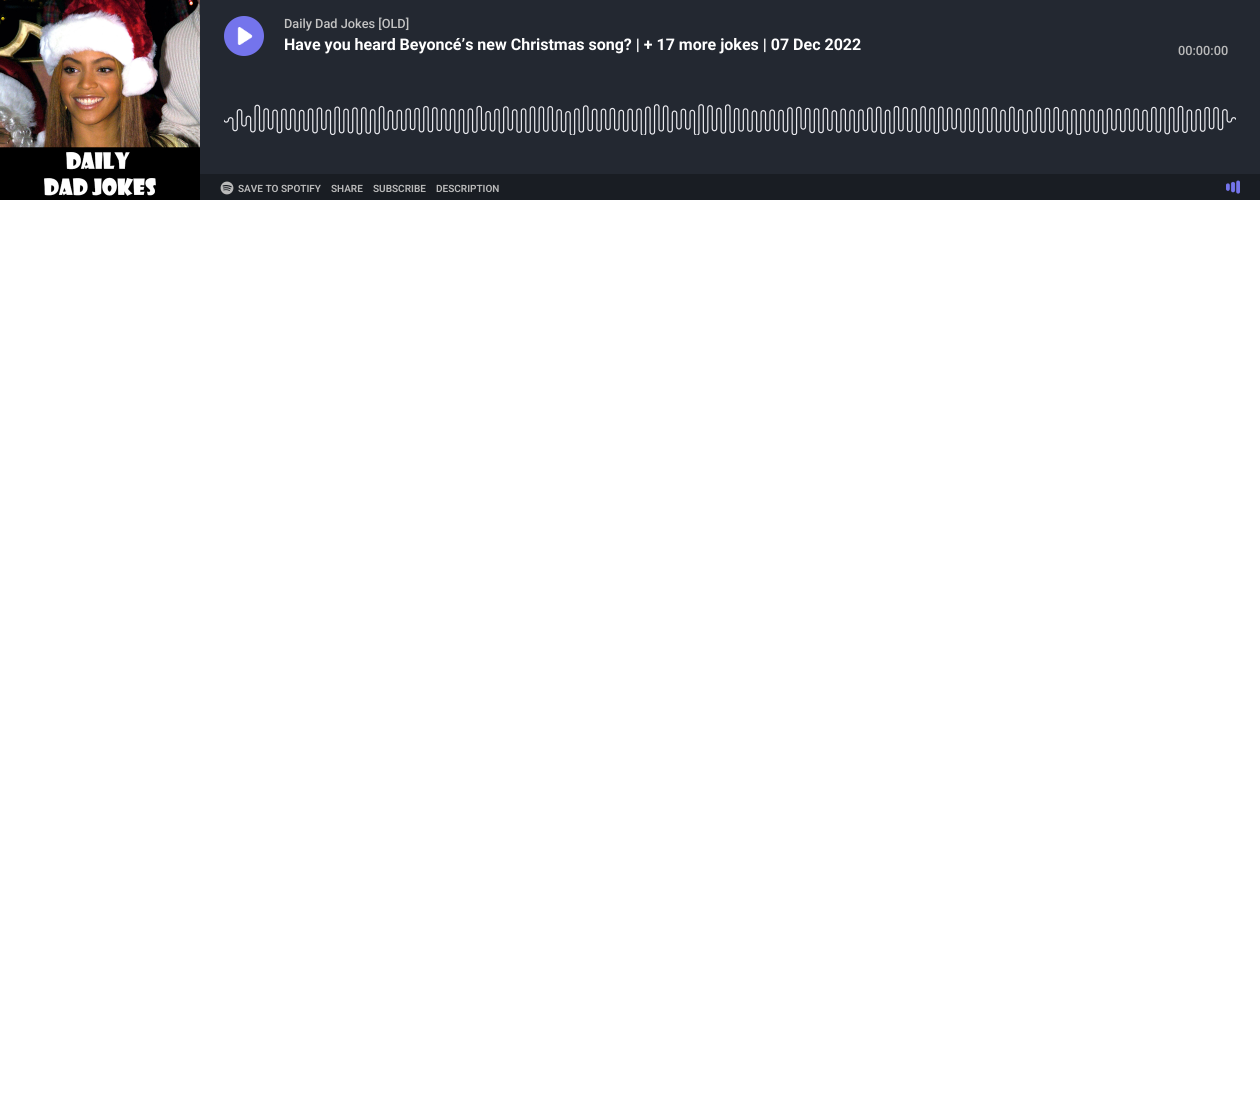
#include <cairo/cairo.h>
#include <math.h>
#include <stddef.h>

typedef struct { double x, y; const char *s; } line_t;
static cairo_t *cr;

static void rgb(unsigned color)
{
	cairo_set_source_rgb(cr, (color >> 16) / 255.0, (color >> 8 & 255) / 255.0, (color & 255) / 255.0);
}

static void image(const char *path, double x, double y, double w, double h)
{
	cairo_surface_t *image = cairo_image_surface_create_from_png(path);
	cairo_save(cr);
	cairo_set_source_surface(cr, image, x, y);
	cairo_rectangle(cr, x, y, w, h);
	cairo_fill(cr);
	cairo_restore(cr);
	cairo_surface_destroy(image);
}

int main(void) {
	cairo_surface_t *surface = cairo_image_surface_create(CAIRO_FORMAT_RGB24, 1260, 1098);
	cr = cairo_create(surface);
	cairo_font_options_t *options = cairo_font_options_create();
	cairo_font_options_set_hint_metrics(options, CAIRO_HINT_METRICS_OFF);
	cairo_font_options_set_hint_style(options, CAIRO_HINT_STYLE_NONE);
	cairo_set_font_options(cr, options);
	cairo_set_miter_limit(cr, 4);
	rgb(0xffffff);
	cairo_paint(cr);
	image("img/1.png", 0, 0, 200, 200);
	rgb(0x232831);
	cairo_rectangle(cr, 200, 0, 1060, 174);
	cairo_fill(cr);
	rgb(0x7474ec);
	cairo_arc(cr, 244, 36, 20, 0, 2 * M_PI);
	cairo_fill(cr);
	image("img/2.png", 237, 27, 16, 18);
	image("img/3.png", 224, 104, 1012, 31);
	rgb(0x191d23);
	cairo_rectangle(cr, 200, 174, 1060, 26);
	cairo_fill(cr);
	image("img/4.png", 220, 181, 14, 14);
	image("img/5.png", 1226, 180, 14, 14);
	cairo_select_font_face(cr, "Roboto Medium", CAIRO_FONT_SLANT_NORMAL, CAIRO_FONT_WEIGHT_NORMAL);
	cairo_set_font_size(cr, 12.75);
	rgb(0xc3c3c3);
	cairo_move_to(cr, 284, 28);
	cairo_show_text(cr, "Daily Dad Jokes [OLD]");
	cairo_select_font_face(cr, "Roboto", CAIRO_FONT_SLANT_NORMAL, CAIRO_FONT_WEIGHT_BOLD);
	cairo_set_font_size(cr, 16);
	rgb(0xffffff);
	cairo_move_to(cr, 284, 50);
	cairo_show_text(cr, "Have you heard Beyoncé’s new Christmas song? | + 17 more jokes | 07 Dec 2022");
	cairo_select_font_face(cr, "Roboto Medium", CAIRO_FONT_SLANT_NORMAL, CAIRO_FONT_WEIGHT_NORMAL);
	cairo_set_font_size(cr, 12.75);
	rgb(0xbababa);
	cairo_move_to(cr, 1178, 55);
	cairo_show_text(cr, "00:00:00");
	cairo_select_font_face(cr, "Roboto SemiBold", CAIRO_FONT_SLANT_NORMAL, CAIRO_FONT_WEIGHT_NORMAL);
	cairo_set_font_size(cr, 10);
	{
		static const line_t items[] = {
			{238, 192, "SAVE TO SPOTIFY"},
			{331, 192, "SHARE"},
			{373, 192, "SUBSCRIBE"},
			{436, 192, "DESCRIPTION"},
		};
		for (size_t i = 0; i < sizeof items / sizeof *items; i++) {
			cairo_move_to(cr, items[i].x, items[i].y);
			cairo_show_text(cr, items[i].s);
		}
	}
	cairo_surface_write_to_png(surface, "page.png");
	cairo_font_options_destroy(options);
	cairo_destroy(cr);
	cairo_surface_destroy(surface);
	return 0;
}
